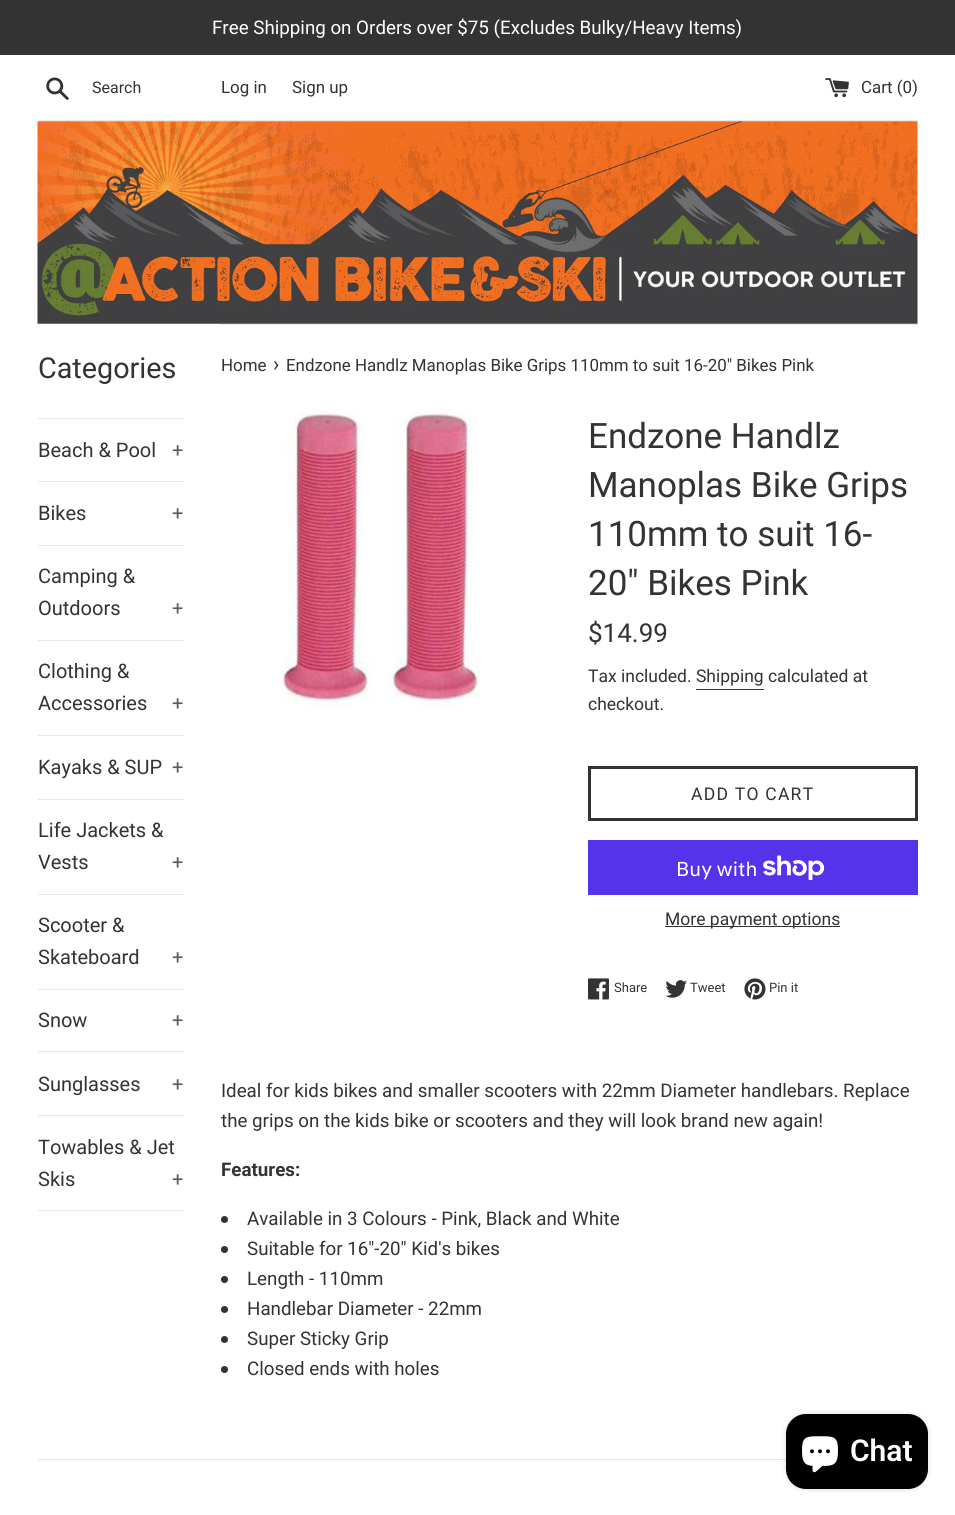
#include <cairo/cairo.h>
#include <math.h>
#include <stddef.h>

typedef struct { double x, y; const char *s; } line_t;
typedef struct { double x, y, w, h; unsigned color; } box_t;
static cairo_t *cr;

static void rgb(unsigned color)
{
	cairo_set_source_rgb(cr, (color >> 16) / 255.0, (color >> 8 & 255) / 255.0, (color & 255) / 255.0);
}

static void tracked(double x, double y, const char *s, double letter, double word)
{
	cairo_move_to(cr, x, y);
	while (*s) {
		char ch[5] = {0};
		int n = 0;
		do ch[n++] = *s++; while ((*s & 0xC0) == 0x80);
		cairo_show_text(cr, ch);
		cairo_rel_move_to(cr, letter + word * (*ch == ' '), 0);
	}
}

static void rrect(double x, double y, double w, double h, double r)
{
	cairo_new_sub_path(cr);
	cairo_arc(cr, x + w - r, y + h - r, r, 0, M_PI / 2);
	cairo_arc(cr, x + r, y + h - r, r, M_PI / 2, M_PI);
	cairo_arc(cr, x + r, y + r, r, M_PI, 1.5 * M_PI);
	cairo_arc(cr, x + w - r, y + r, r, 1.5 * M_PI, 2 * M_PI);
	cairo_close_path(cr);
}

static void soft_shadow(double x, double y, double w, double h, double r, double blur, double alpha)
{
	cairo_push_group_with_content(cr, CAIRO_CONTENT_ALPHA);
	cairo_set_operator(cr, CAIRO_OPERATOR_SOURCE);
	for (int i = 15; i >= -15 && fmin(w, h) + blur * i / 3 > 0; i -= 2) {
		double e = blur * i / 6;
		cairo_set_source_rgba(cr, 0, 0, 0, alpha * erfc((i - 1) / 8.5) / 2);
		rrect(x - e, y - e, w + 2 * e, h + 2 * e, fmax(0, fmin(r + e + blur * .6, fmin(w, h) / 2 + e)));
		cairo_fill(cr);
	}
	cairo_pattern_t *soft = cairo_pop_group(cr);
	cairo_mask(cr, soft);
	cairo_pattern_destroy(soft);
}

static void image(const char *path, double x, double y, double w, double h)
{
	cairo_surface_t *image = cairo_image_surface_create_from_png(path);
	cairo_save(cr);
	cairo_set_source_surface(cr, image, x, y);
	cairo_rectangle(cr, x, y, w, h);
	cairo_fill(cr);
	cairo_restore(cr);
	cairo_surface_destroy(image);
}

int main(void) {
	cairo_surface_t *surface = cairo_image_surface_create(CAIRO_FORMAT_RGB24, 955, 1515);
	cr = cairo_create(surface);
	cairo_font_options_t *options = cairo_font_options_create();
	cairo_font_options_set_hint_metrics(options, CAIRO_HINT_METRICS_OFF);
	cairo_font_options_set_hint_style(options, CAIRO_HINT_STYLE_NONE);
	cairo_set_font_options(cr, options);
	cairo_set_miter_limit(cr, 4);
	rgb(0xffffff);
	cairo_paint(cr);
	rgb(0x333333);
	cairo_rectangle(cr, 0, 0, 955, 55);
	cairo_fill(cr);
	image("img/1.png", 46, 77, 23, 23);
	image("img/2.png", 825, 78, 24, 20);
	rgb(0xe8e8e8);
	cairo_rectangle(cr, 38, 120, 880, 1);
	cairo_fill(cr);
	image("img/3.png", 37, 121, 881, 203);
	{
		static const box_t items[] = {
			{38, 418, 146, 1, 0xe8e8e8},
			{38, 481, 146, 1, 0xe8e8e8},
			{38, 545, 146, 1, 0xe8e8e8},
			{38, 640, 146, 1, 0xe8e8e8},
			{38, 735, 146, 1, 0xe8e8e8},
			{38, 799, 146, 1, 0xe8e8e8},
			{38, 894, 146, 1, 0xe8e8e8},
			{38, 989, 146, 1, 0xe8e8e8},
			{38, 1051, 146, 1, 0xe8e8e8},
			{38, 1115, 146, 1, 0xe8e8e8},
			{38, 1210, 146, 1, 0xe8e8e8},
			{221, 324, 697, 1, 0xe8e8e8},
		};
		for (size_t i = 0; i < sizeof items / sizeof *items; i++) {
			rgb(items[i].color);
			cairo_rectangle(cr, items[i].x, items[i].y, items[i].w, items[i].h);
			cairo_fill(cr);
		}
	}
	image("img/4.png", 282, 409, 199, 298);
	rgb(0x333333);
	cairo_rectangle(cr, 696, 689, 68, 1);
	cairo_fill(cr);
	cairo_rectangle(cr, 589.5, 767.5, 327, 52);
	cairo_set_line_width(cr, 3);
	cairo_stroke(cr);
	rgb(0x5433eb);
	cairo_rectangle(cr, 588, 840, 330, 55);
	cairo_fill(cr);
	image("img/5.png", 763, 855, 62, 25);
	rgb(0x333333);
	cairo_rectangle(cr, 665, 926, 175, 1);
	cairo_fill(cr);
	image("img/6.png", 588, 978, 21, 22);
	image("img/7.png", 665, 980, 22, 18);
	image("img/8.png", 744, 978, 22, 22);
	cairo_arc(cr, 224.5, 1219.5, 3.5, 0, 2 * M_PI);
	cairo_fill(cr);
	cairo_arc(cr, 224.5, 1249.5, 3.5, 0, 2 * M_PI);
	cairo_fill(cr);
	cairo_arc(cr, 224.5, 1279.5, 3.5, 0, 2 * M_PI);
	cairo_fill(cr);
	cairo_arc(cr, 224.5, 1309.5, 3.5, 0, 2 * M_PI);
	cairo_fill(cr);
	cairo_arc(cr, 224.5, 1339.5, 3.5, 0, 2 * M_PI);
	cairo_fill(cr);
	cairo_arc(cr, 224.5, 1369.5, 3.5, 0, 2 * M_PI);
	cairo_fill(cr);
	rgb(0xe8e8e8);
	cairo_rectangle(cr, 38, 1459, 748, 1);
	cairo_fill(cr);
	rgb(0x000000);
	soft_shadow(786, 1414, 142, 75, 20, 3, 0.15);
	rgb(0x000000);
	rrect(786, 1414, 142, 75, 20);
	cairo_fill(cr);
	image("img/9.png", 802, 1436, 36, 37);
	cairo_select_font_face(cr, "Roboto", CAIRO_FONT_SLANT_NORMAL, CAIRO_FONT_WEIGHT_NORMAL);
	cairo_set_font_size(cr, 18.75);
	rgb(0xffffff);
	cairo_move_to(cr, 212, 34);
	cairo_show_text(cr, "Free Shipping on Orders over $75 (Excludes Bulky/Heavy Items)");
	cairo_set_font_size(cr, 16);
	rgb(0x333333);
	cairo_move_to(cr, 92, 93);
	cairo_show_text(cr, "Search");
	cairo_set_font_size(cr, 16.9);
	{
		static const line_t items[] = {
			{221, 93, "Log in"},
			{292, 93, "Sign up"},
			{861, 93, "Cart (0)"},
		};
		for (size_t i = 0; i < sizeof items / sizeof *items; i++) {
			cairo_move_to(cr, items[i].x, items[i].y);
			cairo_show_text(cr, items[i].s);
		}
	}
	cairo_set_font_size(cr, 28.75);
	cairo_move_to(cr, 38, 378);
	cairo_show_text(cr, "Categories");
	cairo_set_font_size(cr, 20);
	cairo_move_to(cr, 38, 457);
	cairo_show_text(cr, "Beach & Pool");
	rgb(0x5c5c5c);
	cairo_move_to(cr, 172, 457);
	cairo_show_text(cr, "+");
	rgb(0x333333);
	cairo_move_to(cr, 38, 520);
	cairo_show_text(cr, "Bikes");
	rgb(0x5c5c5c);
	cairo_move_to(cr, 172, 520);
	cairo_show_text(cr, "+");
	rgb(0x333333);
	cairo_move_to(cr, 38, 583);
	cairo_show_text(cr, "Camping &");
	cairo_move_to(cr, 38, 615);
	cairo_show_text(cr, "Outdoors");
	rgb(0x5c5c5c);
	cairo_move_to(cr, 172, 615);
	cairo_show_text(cr, "+");
	rgb(0x333333);
	cairo_move_to(cr, 38, 678);
	cairo_show_text(cr, "Clothing &");
	cairo_move_to(cr, 38, 710);
	cairo_show_text(cr, "Accessories");
	rgb(0x5c5c5c);
	cairo_move_to(cr, 172, 710);
	cairo_show_text(cr, "+");
	rgb(0x333333);
	cairo_move_to(cr, 38, 774);
	cairo_show_text(cr, "Kayaks & SUP");
	rgb(0x5c5c5c);
	cairo_move_to(cr, 172, 774);
	cairo_show_text(cr, "+");
	rgb(0x333333);
	cairo_move_to(cr, 38, 837);
	cairo_show_text(cr, "Life Jackets &");
	cairo_move_to(cr, 38, 869);
	cairo_show_text(cr, "Vests");
	rgb(0x5c5c5c);
	cairo_move_to(cr, 172, 869);
	cairo_show_text(cr, "+");
	rgb(0x333333);
	cairo_move_to(cr, 38, 932);
	cairo_show_text(cr, "Scooter &");
	cairo_move_to(cr, 38, 964);
	cairo_show_text(cr, "Skateboard");
	rgb(0x5c5c5c);
	cairo_move_to(cr, 172, 964);
	cairo_show_text(cr, "+");
	rgb(0x333333);
	cairo_move_to(cr, 38, 1027);
	cairo_show_text(cr, "Snow");
	rgb(0x5c5c5c);
	cairo_move_to(cr, 172, 1027);
	cairo_show_text(cr, "+");
	rgb(0x333333);
	cairo_move_to(cr, 38, 1091);
	cairo_show_text(cr, "Sunglasses");
	rgb(0x5c5c5c);
	cairo_move_to(cr, 172, 1091);
	cairo_show_text(cr, "+");
	rgb(0x333333);
	cairo_move_to(cr, 38, 1154);
	cairo_show_text(cr, "Towables & Jet");
	cairo_move_to(cr, 38, 1186);
	cairo_show_text(cr, "Skis");
	rgb(0x5c5c5c);
	cairo_move_to(cr, 172, 1186);
	cairo_show_text(cr, "+");
	cairo_set_font_size(cr, 16.9);
	rgb(0x333333);
	cairo_move_to(cr, 221, 371);
	cairo_show_text(cr, "Home");
	cairo_set_font_size(cr, 21);
	cairo_move_to(cr, 273, 371);
	cairo_show_text(cr, "›");
	cairo_set_font_size(cr, 16.9);
	cairo_move_to(cr, 286, 371);
	cairo_show_text(cr, "Endzone Handlz Manoplas Bike Grips 110mm to suit 16-20\" Bikes Pink");
	cairo_set_font_size(cr, 35);
	{
		static const line_t items[] = {
			{588, 448, "Endzone Handlz"},
			{588, 497, "Manoplas Bike Grips"},
			{588, 546, "110mm to suit 16-"},
			{588, 595, "20\" Bikes Pink"},
		};
		for (size_t i = 0; i < sizeof items / sizeof *items; i++) {
			cairo_move_to(cr, items[i].x, items[i].y);
			cairo_show_text(cr, items[i].s);
		}
	}
	cairo_set_font_size(cr, 26);
	cairo_move_to(cr, 588, 642);
	cairo_show_text(cr, "$14.99");
	cairo_set_font_size(cr, 17.5);
	cairo_move_to(cr, 588, 682);
	cairo_show_text(cr, "Tax included. Shipping calculated at");
	cairo_move_to(cr, 588, 710);
	cairo_show_text(cr, "checkout.");
	tracked(691, 800, "ADD TO CART", 1.25, 0);
	cairo_select_font_face(cr, "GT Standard", CAIRO_FONT_SLANT_NORMAL, CAIRO_FONT_WEIGHT_NORMAL);
	cairo_set_font_size(cr, 20);
	rgb(0xffffff);
	cairo_move_to(cr, 676, 876);
	cairo_show_text(cr, "Buy with");
	cairo_select_font_face(cr, "Roboto", CAIRO_FONT_SLANT_NORMAL, CAIRO_FONT_WEIGHT_NORMAL);
	cairo_set_font_size(cr, 17.5);
	rgb(0x333333);
	cairo_move_to(cr, 665, 925);
	cairo_show_text(cr, "More payment options");
	cairo_set_font_size(cr, 13);
	{
		static const line_t items[] = {
			{614, 992, "Share"},
			{690, 992, "Tweet"},
			{769, 992, "Pin it"},
		};
		for (size_t i = 0; i < sizeof items / sizeof *items; i++) {
			cairo_move_to(cr, items[i].x, items[i].y);
			cairo_show_text(cr, items[i].s);
		}
	}
	cairo_set_font_size(cr, 18.75);
	cairo_move_to(cr, 221, 1097);
	cairo_show_text(cr, "Ideal for kids bikes and smaller scooters with 22mm Diameter handlebars. Replace");
	cairo_move_to(cr, 221, 1127);
	cairo_show_text(cr, "the grips on the kids bike or scooters and they will look brand new again!");
	cairo_select_font_face(cr, "Roboto", CAIRO_FONT_SLANT_NORMAL, CAIRO_FONT_WEIGHT_BOLD);
	cairo_move_to(cr, 221, 1176);
	cairo_show_text(cr, "Features:");
	cairo_select_font_face(cr, "Roboto", CAIRO_FONT_SLANT_NORMAL, CAIRO_FONT_WEIGHT_NORMAL);
	{
		static const line_t items[] = {
			{247, 1225, "Available in 3 Colours - Pink, Black and White"},
			{247, 1255, "Suitable for 16\"-20\" Kid's bikes"},
			{247, 1285, "Length - 110mm"},
			{247, 1315, "Handlebar Diameter - 22mm"},
			{247, 1345, "Super Sticky Grip"},
			{247, 1375, "Closed ends with holes"},
		};
		for (size_t i = 0; i < sizeof items / sizeof *items; i++) {
			cairo_move_to(cr, items[i].x, items[i].y);
			cairo_show_text(cr, items[i].s);
		}
	}
	cairo_select_font_face(cr, "Roboto SemiBold", CAIRO_FONT_SLANT_NORMAL, CAIRO_FONT_WEIGHT_NORMAL);
	cairo_set_font_size(cr, 30);
	rgb(0xffffff);
	cairo_move_to(cr, 850, 1461);
	cairo_show_text(cr, "Chat");
	cairo_surface_write_to_png(surface, "page.png");
	cairo_font_options_destroy(options);
	cairo_destroy(cr);
	cairo_surface_destroy(surface);
	return 0;
}
